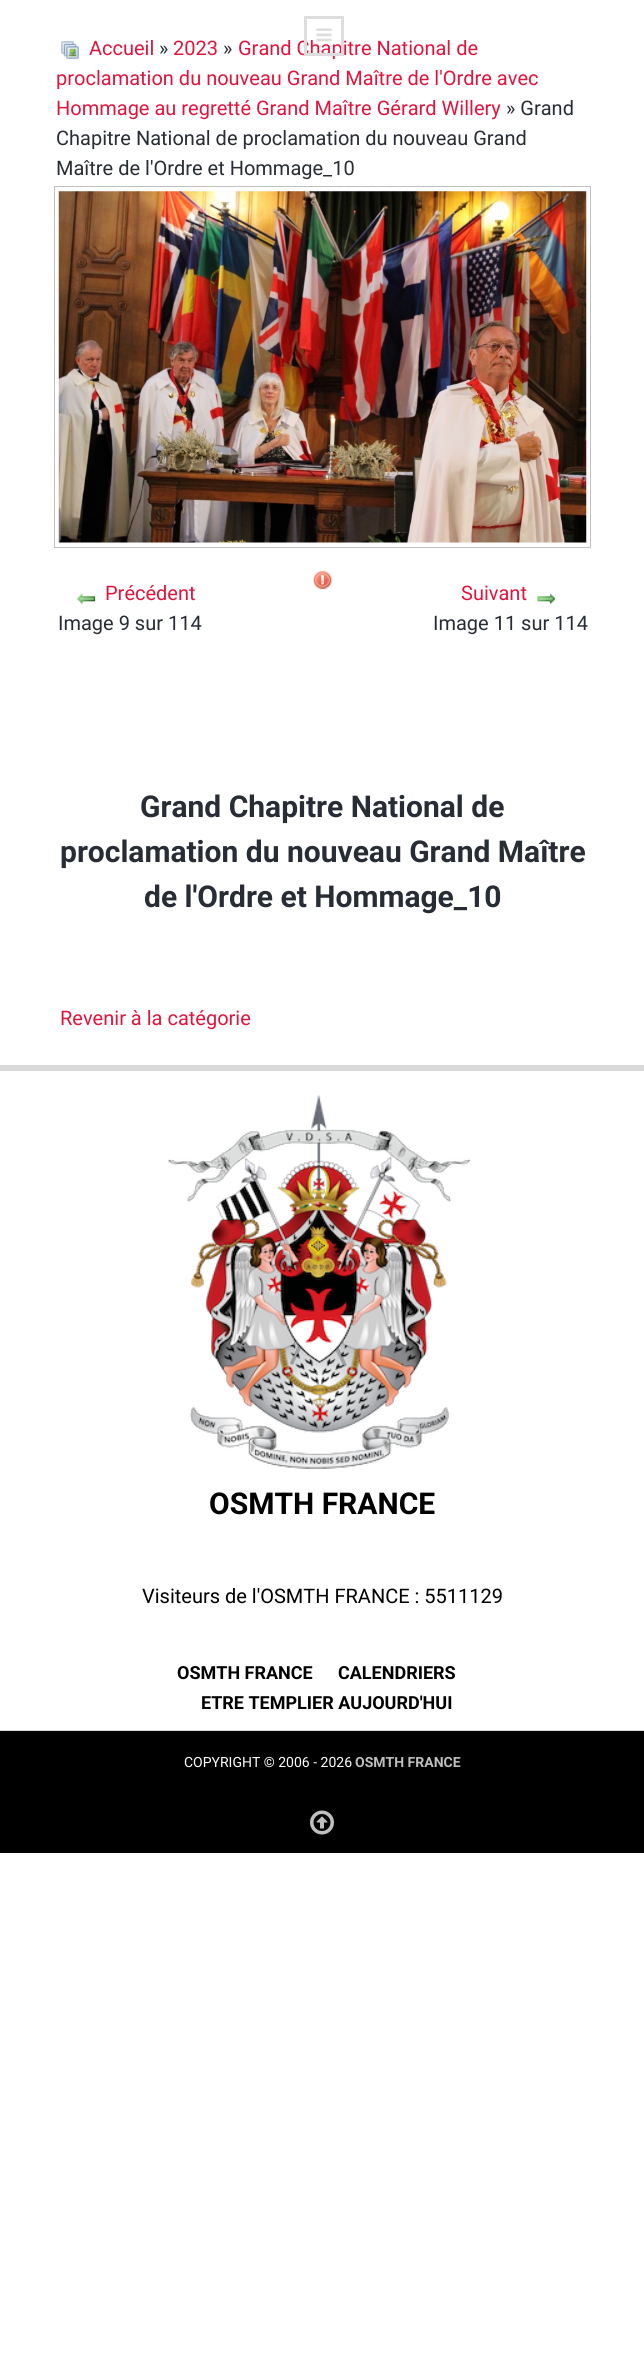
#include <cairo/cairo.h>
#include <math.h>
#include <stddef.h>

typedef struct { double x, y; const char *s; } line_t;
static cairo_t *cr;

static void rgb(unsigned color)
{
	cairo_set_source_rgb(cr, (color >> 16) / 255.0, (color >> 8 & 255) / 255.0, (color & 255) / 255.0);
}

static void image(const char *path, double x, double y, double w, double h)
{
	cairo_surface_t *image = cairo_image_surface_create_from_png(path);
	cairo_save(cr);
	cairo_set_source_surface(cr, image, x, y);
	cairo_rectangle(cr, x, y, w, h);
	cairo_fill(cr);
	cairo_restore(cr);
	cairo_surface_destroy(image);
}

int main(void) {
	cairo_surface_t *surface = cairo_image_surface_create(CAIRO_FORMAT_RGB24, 644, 2377);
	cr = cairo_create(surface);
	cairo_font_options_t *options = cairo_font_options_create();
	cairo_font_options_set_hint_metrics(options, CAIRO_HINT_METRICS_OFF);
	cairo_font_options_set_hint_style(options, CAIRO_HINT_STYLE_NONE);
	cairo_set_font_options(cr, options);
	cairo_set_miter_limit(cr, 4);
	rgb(0xffffff);
	cairo_paint(cr);
	image("img/2.png", 61, 41, 18, 18);
	cairo_rectangle(cr, 54.5, 186.5, 536, 361);
	rgb(0xc0c0c0);
	cairo_set_line_width(cr, 1);
	cairo_stroke(cr);
	image("img/3.png", 58, 191, 529, 352);
	image("img/4.png", 313, 571, 19, 18);
	image("img/5.png", 77, 593, 19, 11);
	image("img/6.png", 537, 593, 19, 11);
	rgb(0xd9d9d9);
	cairo_rectangle(cr, 0, 1065, 644, 6);
	cairo_fill(cr);
	cairo_rectangle(cr, 0, 1730, 644, 1);
	cairo_fill(cr);
	image("img/7.png", 168, 1095, 303, 374);
	rgb(0x000000);
	cairo_rectangle(cr, 0, 1731, 644, 122);
	cairo_fill(cr);
	image("img/8.png", 310, 1810, 24, 25);
	cairo_select_font_face(cr, "Roboto", CAIRO_FONT_SLANT_NORMAL, CAIRO_FONT_WEIGHT_NORMAL);
	cairo_set_font_size(cr, 20);
	rgb(0xe0153d);
	cairo_move_to(cr, 89, 55);
	cairo_show_text(cr, "Accueil");
	rgb(0x272c35);
	cairo_move_to(cr, 159, 55);
	cairo_show_text(cr, "»");
	rgb(0xe0153d);
	cairo_move_to(cr, 173, 55);
	cairo_show_text(cr, "2023");
	rgb(0x272c35);
	cairo_move_to(cr, 223, 55);
	cairo_show_text(cr, "»");
	rgb(0xe0153d);
	cairo_move_to(cr, 238, 55);
	cairo_show_text(cr, "Grand Chapitre National de");
	cairo_rectangle(cr, 305.5, 17.5, 37, 37);
	rgb(0xdddddd);
	cairo_set_line_width(cr, 3);
	cairo_stroke(cr);
	image("img/1.png", 316, 28, 16, 14);
	rgb(0xe0153d);
	cairo_move_to(cr, 56, 85);
	cairo_show_text(cr, "proclamation du nouveau Grand Maître de l'Ordre avec");
	cairo_move_to(cr, 56, 115);
	cairo_show_text(cr, "Hommage au regretté Grand Maître Gérard Willery");
	rgb(0x272c35);
	{
		static const line_t items[] = {
			{506, 115, "» Grand"},
			{56, 145, "Chapitre National de proclamation du nouveau Grand"},
			{56, 175, "Maître de l'Ordre et Hommage_10"},
		};
		for (size_t i = 0; i < sizeof items / sizeof *items; i++) {
			cairo_move_to(cr, items[i].x, items[i].y);
			cairo_show_text(cr, items[i].s);
		}
	}
	rgb(0xe0153d);
	cairo_move_to(cr, 105, 600);
	cairo_show_text(cr, "Précédent");
	rgb(0x272c35);
	cairo_move_to(cr, 58, 630);
	cairo_show_text(cr, "Image 9 sur 114");
	rgb(0xe0153d);
	cairo_move_to(cr, 461, 600);
	cairo_show_text(cr, "Suivant");
	rgb(0x272c35);
	cairo_move_to(cr, 433, 630);
	cairo_show_text(cr, "Image 11 sur 114");
	cairo_select_font_face(cr, "Roboto", CAIRO_FONT_SLANT_NORMAL, CAIRO_FONT_WEIGHT_BOLD);
	cairo_set_font_size(cr, 30);
	{
		static const line_t items[] = {
			{140, 817, "Grand Chapitre National de"},
			{60, 862, "proclamation du nouveau Grand Maître"},
			{144, 907, "de l'Ordre et Hommage_10"},
		};
		for (size_t i = 0; i < sizeof items / sizeof *items; i++) {
			cairo_move_to(cr, items[i].x, items[i].y);
			cairo_show_text(cr, items[i].s);
		}
	}
	cairo_select_font_face(cr, "Roboto", CAIRO_FONT_SLANT_NORMAL, CAIRO_FONT_WEIGHT_NORMAL);
	cairo_set_font_size(cr, 20);
	rgb(0xe0153d);
	cairo_move_to(cr, 60, 1025);
	cairo_show_text(cr, "Revenir à la catégorie");
	cairo_select_font_face(cr, "Roboto", CAIRO_FONT_SLANT_NORMAL, CAIRO_FONT_WEIGHT_BOLD);
	cairo_set_font_size(cr, 30);
	rgb(0x000000);
	cairo_move_to(cr, 209, 1514);
	cairo_show_text(cr, "OSMTH FRANCE");
	cairo_select_font_face(cr, "Roboto", CAIRO_FONT_SLANT_NORMAL, CAIRO_FONT_WEIGHT_NORMAL);
	cairo_set_font_size(cr, 20);
	cairo_move_to(cr, 142, 1603);
	cairo_show_text(cr, "Visiteurs de l'OSMTH FRANCE : 5511129");
	cairo_select_font_face(cr, "Roboto", CAIRO_FONT_SLANT_NORMAL, CAIRO_FONT_WEIGHT_BOLD);
	cairo_set_font_size(cr, 18);
	{
		static const line_t items[] = {
			{177, 1679, "OSMTH FRANCE"},
			{338, 1679, "CALENDRIERS"},
			{201, 1709, "ETRE TEMPLIER AUJOURD'HUI"},
		};
		for (size_t i = 0; i < sizeof items / sizeof *items; i++) {
			cairo_move_to(cr, items[i].x, items[i].y);
			cairo_show_text(cr, items[i].s);
		}
	}
	cairo_select_font_face(cr, "Roboto", CAIRO_FONT_SLANT_NORMAL, CAIRO_FONT_WEIGHT_NORMAL);
	cairo_set_font_size(cr, 14);
	rgb(0xffffff);
	cairo_move_to(cr, 184, 1767);
	cairo_show_text(cr, "COPYRIGHT © 2006 - 2026");
	cairo_select_font_face(cr, "Roboto", CAIRO_FONT_SLANT_NORMAL, CAIRO_FONT_WEIGHT_BOLD);
	rgb(0xbfbfbf);
	cairo_move_to(cr, 355, 1767);
	cairo_show_text(cr, "OSMTH FRANCE");
	cairo_surface_write_to_png(surface, "page.png");
	cairo_font_options_destroy(options);
	cairo_destroy(cr);
	cairo_surface_destroy(surface);
	return 0;
}
